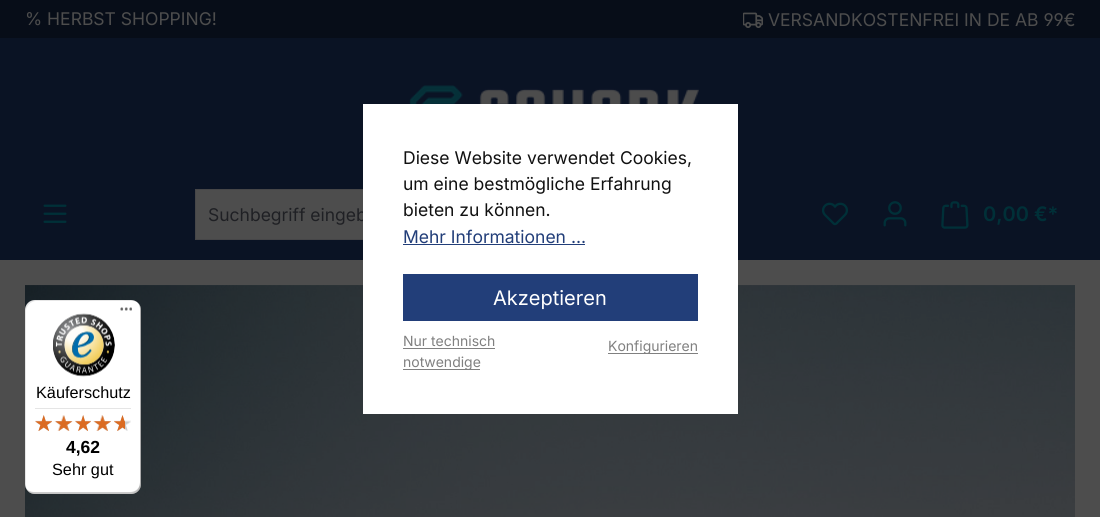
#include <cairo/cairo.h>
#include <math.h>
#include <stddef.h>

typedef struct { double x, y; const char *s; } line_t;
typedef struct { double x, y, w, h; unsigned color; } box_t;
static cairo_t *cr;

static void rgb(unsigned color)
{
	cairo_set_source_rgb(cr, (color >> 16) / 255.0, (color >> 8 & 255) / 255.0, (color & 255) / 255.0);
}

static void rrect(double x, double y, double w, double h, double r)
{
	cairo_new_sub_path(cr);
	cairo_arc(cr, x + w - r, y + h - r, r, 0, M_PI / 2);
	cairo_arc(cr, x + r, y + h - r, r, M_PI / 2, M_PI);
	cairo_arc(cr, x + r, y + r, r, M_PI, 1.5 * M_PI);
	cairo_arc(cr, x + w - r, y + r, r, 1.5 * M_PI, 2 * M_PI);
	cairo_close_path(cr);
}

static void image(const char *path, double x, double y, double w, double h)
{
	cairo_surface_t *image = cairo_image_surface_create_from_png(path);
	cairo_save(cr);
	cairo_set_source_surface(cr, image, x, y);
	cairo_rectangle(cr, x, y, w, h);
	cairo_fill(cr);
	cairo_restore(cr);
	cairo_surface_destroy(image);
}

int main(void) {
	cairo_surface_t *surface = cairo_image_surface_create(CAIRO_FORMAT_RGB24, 1100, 517);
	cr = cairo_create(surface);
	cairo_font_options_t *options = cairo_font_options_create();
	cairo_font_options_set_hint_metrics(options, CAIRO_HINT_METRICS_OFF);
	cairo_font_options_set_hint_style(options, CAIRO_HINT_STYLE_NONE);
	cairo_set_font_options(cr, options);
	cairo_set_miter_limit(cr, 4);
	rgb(0x4d4d4d);
	cairo_paint(cr);
	rgb(0x0a1324);
	cairo_rectangle(cr, 0, 38, 1100, 222);
	cairo_fill(cr);
	rgb(0x070d18);
	cairo_rectangle(cr, 0, 0, 1100, 38);
	cairo_fill(cr);
	image("img/1.png", 743, 12, 20, 16);
	image("img/2.png", 406, 85, 293, 19);
	image("img/3.png", 43, 204, 24, 19);
	{
		static const box_t items[] = {
			{196, 190, 167, 49, 0x4d4d4d},
			{195, 189, 168, 1, 0x464648},
			{195, 239, 168, 1, 0x464648},
			{195, 189, 1, 51, 0x464648},
		};
		for (size_t i = 0; i < sizeof items / sizeof *items; i++) {
			rgb(items[i].color);
			cairo_rectangle(cr, items[i].x, items[i].y, items[i].w, items[i].h);
			cairo_fill(cr);
		}
	}
	image("img/4.png", 822, 202, 26, 24);
	image("img/5.png", 883, 201, 24, 26);
	image("img/6.png", 941, 201, 28, 28);
	image("img/7.png", 25, 285, 1050, 232);
	rgb(0xffffff);
	rrect(25, 300, 116, 194, 10);
	cairo_fill(cr);
	cairo_set_source_rgba(cr, 0, 0, 0, 0.1);
	cairo_new_path(cr);
	cairo_move_to(cr, 36, 301);
	cairo_line_to(cr, 132, 301);
	cairo_curve_to(cr, 135, 301, 137, 302, 139, 303);
	cairo_curve_to(cr, 137, 301, 134, 300, 131, 300);
	cairo_line_to(cr, 35, 300);
	cairo_curve_to(cr, 29, 300, 25, 304, 25, 310);
	cairo_line_to(cr, 25, 484);
	cairo_curve_to(cr, 25, 487, 26, 490, 28, 492);
	cairo_curve_to(cr, 27, 490, 26, 488, 26, 485);
	cairo_line_to(cr, 26, 311);
	cairo_curve_to(cr, 26, 306, 31, 301, 36, 301);
	cairo_close_path(cr);
	cairo_fill(cr);
	cairo_set_source_rgba(cr, 0, 0, 0, 0.2);
	cairo_new_path(cr);
	cairo_move_to(cr, 26, 488);
	cairo_curve_to(cr, 28, 492, 31, 494, 35, 494);
	cairo_line_to(cr, 131, 494);
	cairo_curve_to(cr, 137, 494, 141, 490, 141, 484);
	cairo_line_to(cr, 141, 310);
	cairo_curve_to(cr, 141, 308, 140, 305, 139, 304);
	cairo_curve_to(cr, 140, 305, 140, 307, 140, 309);
	cairo_line_to(cr, 140, 482);
	cairo_curve_to(cr, 140, 488, 136, 492, 130, 492);
	cairo_line_to(cr, 34, 492);
	cairo_curve_to(cr, 31, 492, 28, 491, 26, 488);
	cairo_close_path(cr);
	cairo_fill(cr);
	cairo_set_source_rgba(cr, 0.196, 0.196, 0.196, 0.2);
	cairo_new_path(cr);
	cairo_move_to(cr, 27, 490);
	cairo_curve_to(cr, 29, 493, 32, 494, 35, 494);
	cairo_line_to(cr, 131, 494);
	cairo_curve_to(cr, 137, 494, 141, 490, 141, 484);
	cairo_line_to(cr, 141, 310);
	cairo_curve_to(cr, 141, 307, 140, 304, 137, 302);
	cairo_curve_to(cr, 139, 304, 140, 307, 140, 309);
	cairo_line_to(cr, 140, 483);
	cairo_curve_to(cr, 140, 489, 136, 493, 130, 493);
	cairo_line_to(cr, 34, 493);
	cairo_curve_to(cr, 32, 493, 29, 492, 27, 490);
	cairo_close_path(cr);
	cairo_fill(cr);
	image("img/8.png", 120, 307, 12, 4);
	cairo_set_source_rgba(cr, 1, 1, 1, 0.3);
	cairo_new_path(cr);
	cairo_move_to(cr, 27, 490);
	cairo_curve_to(cr, 29, 493, 32, 494, 35, 494);
	cairo_line_to(cr, 131, 494);
	cairo_curve_to(cr, 137, 494, 141, 490, 141, 484);
	cairo_line_to(cr, 141, 483);
	cairo_curve_to(cr, 141, 489, 136, 493, 131, 493);
	cairo_line_to(cr, 34, 493);
	cairo_curve_to(cr, 32, 493, 29, 492, 27, 490);
	cairo_close_path(cr);
	cairo_fill(cr);
	image("img/9.png", 53, 313, 62, 64);
	rgb(0xe5e5e5);
	cairo_rectangle(cr, 35, 408, 96, 1);
	cairo_fill(cr);
	image("img/10.png", 35, 415, 17, 16);
	image("img/11.png", 55, 415, 17, 16);
	image("img/12.png", 75, 415, 16, 16);
	image("img/13.png", 93, 415, 18, 16);
	image("img/14.png", 114, 415, 17, 16);
	image("img/15.png", 35, 415, 17, 16);
	image("img/16.png", 54, 415, 19, 16);
	image("img/17.png", 75, 415, 16, 16);
	image("img/18.png", 93, 415, 18, 16);
	image("img/19.png", 114, 415, 11, 16);
	cairo_select_font_face(cr, "Inter", CAIRO_FONT_SLANT_NORMAL, CAIRO_FONT_WEIGHT_NORMAL);
	cairo_set_font_size(cr, 17.5);
	rgb(0x4d4d4d);
	cairo_move_to(cr, 25, 25);
	cairo_show_text(cr, "% HERBST SHOPPING!");
	cairo_select_font_face(cr, "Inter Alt", CAIRO_FONT_SLANT_NORMAL, CAIRO_FONT_WEIGHT_NORMAL);
	cairo_move_to(cr, 768, 26);
	cairo_show_text(cr, "VERSANDKOSTENFREI IN DE AB 99€");
	cairo_select_font_face(cr, "Inter", CAIRO_FONT_SLANT_NORMAL, CAIRO_FONT_WEIGHT_NORMAL);
	rgb(0x1f2024);
	cairo_move_to(cr, 208, 221);
	cairo_show_text(cr, "Suchbegriff eingeb");
	cairo_select_font_face(cr, "Inter SemiBold", CAIRO_FONT_SLANT_NORMAL, CAIRO_FONT_WEIGHT_NORMAL);
	cairo_set_font_size(cr, 20);
	rgb(0x003038);
	cairo_move_to(cr, 983, 221);
	cairo_show_text(cr, "0,00 €*");
	rgb(0xffffff);
	cairo_rectangle(cr, 363, 104, 375, 310);
	cairo_fill(cr);
	cairo_select_font_face(cr, "Inter", CAIRO_FONT_SLANT_NORMAL, CAIRO_FONT_WEIGHT_NORMAL);
	cairo_set_font_size(cr, 17.5);
	rgb(0x111111);
	{
		static const line_t items[] = {
			{403, 164, "Diese Website verwendet Cookies,"},
			{403, 190, "um eine bestmögliche Erfahrung"},
			{403, 216, "bieten zu können."},
		};
		for (size_t i = 0; i < sizeof items / sizeof *items; i++) {
			cairo_move_to(cr, items[i].x, items[i].y);
			cairo_show_text(cr, items[i].s);
		}
	}
	rgb(0x223e79);
	cairo_move_to(cr, 403, 243);
	cairo_show_text(cr, "Mehr Informationen ...");
	cairo_rectangle(cr, 403, 244, 182, 1);
	cairo_fill(cr);
	cairo_rectangle(cr, 403, 274, 295, 47);
	cairo_fill(cr);
	cairo_set_font_size(cr, 20);
	rgb(0xffffff);
	cairo_move_to(cr, 493, 305);
	cairo_show_text(cr, "Akzeptieren");
	cairo_set_font_size(cr, 14);
	rgb(0x808080);
	cairo_move_to(cr, 403, 346);
	cairo_show_text(cr, "Nur technisch");
	cairo_rectangle(cr, 403, 348, 92, 1);
	cairo_fill(cr);
	cairo_rectangle(cr, 403, 369, 77, 1);
	cairo_fill(cr);
	cairo_move_to(cr, 403, 367);
	cairo_show_text(cr, "notwendige");
	cairo_rectangle(cr, 608, 353, 90, 1);
	cairo_fill(cr);
	cairo_move_to(cr, 608, 351);
	cairo_show_text(cr, "Konfigurieren");
	cairo_select_font_face(cr, "Liberation Sans", CAIRO_FONT_SLANT_NORMAL, CAIRO_FONT_WEIGHT_NORMAL);
	cairo_set_font_size(cr, 16.25);
	rgb(0x000000);
	cairo_move_to(cr, 36, 398);
	cairo_show_text(cr, "Käuferschutz");
	cairo_select_font_face(cr, "Liberation Sans", CAIRO_FONT_SLANT_NORMAL, CAIRO_FONT_WEIGHT_BOLD);
	cairo_set_font_size(cr, 17.5);
	cairo_move_to(cr, 66, 453);
	cairo_show_text(cr, "4,62");
	cairo_select_font_face(cr, "Liberation Sans", CAIRO_FONT_SLANT_NORMAL, CAIRO_FONT_WEIGHT_NORMAL);
	cairo_set_font_size(cr, 16.25);
	cairo_move_to(cr, 52, 475);
	cairo_show_text(cr, "Sehr gut");
	cairo_surface_write_to_png(surface, "page.png");
	cairo_font_options_destroy(options);
	cairo_destroy(cr);
	cairo_surface_destroy(surface);
	return 0;
}
